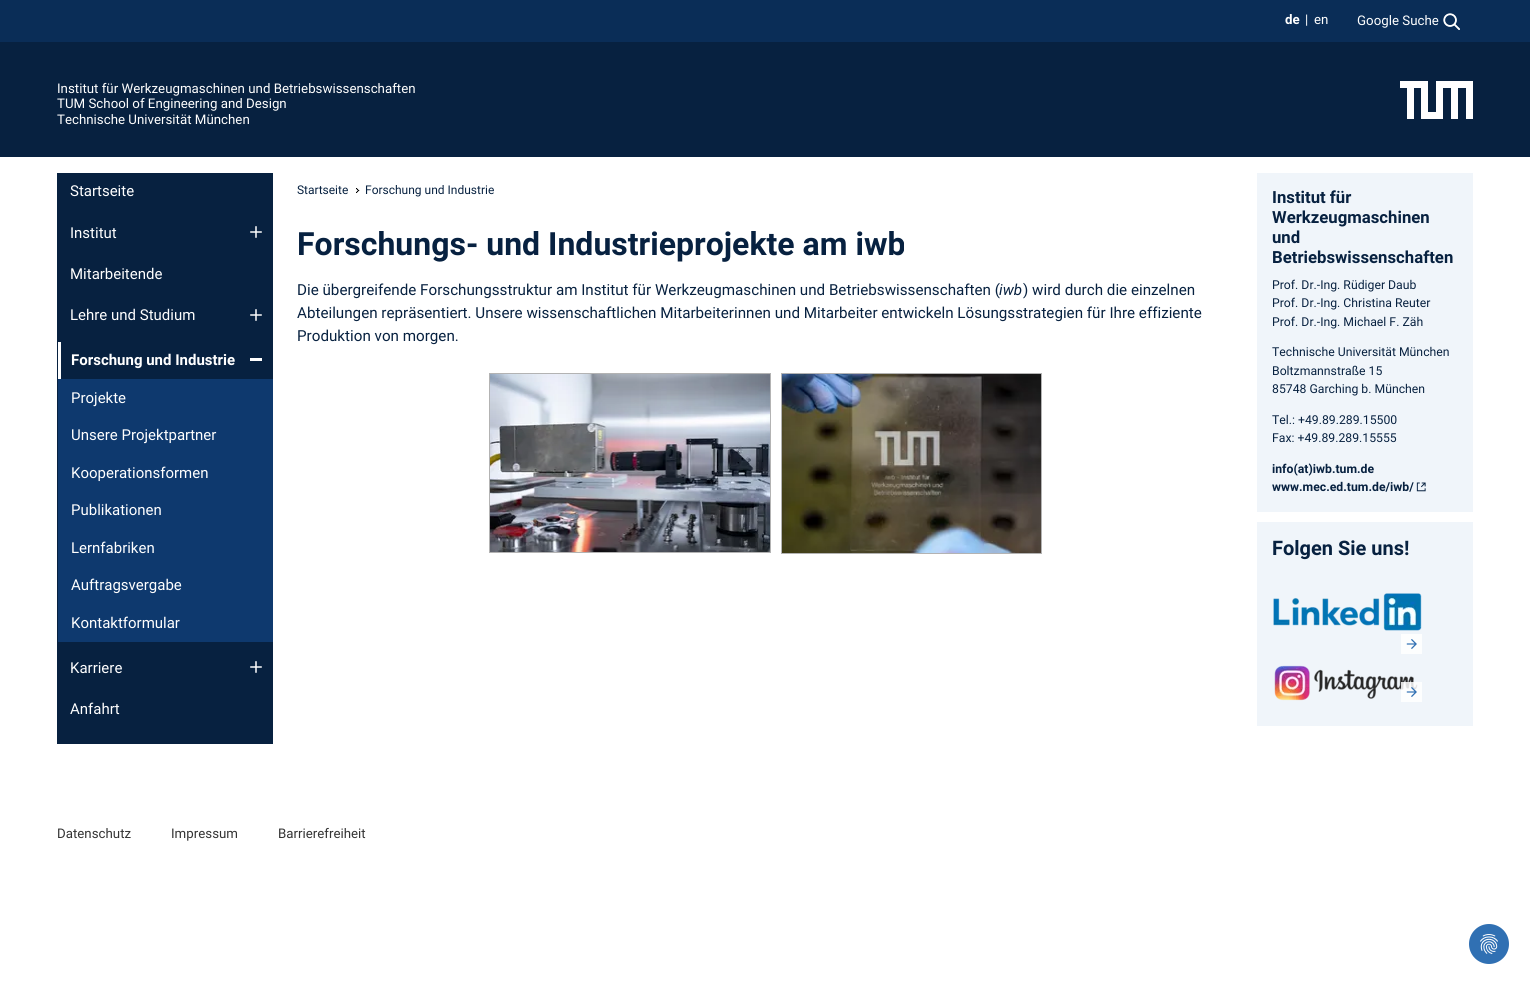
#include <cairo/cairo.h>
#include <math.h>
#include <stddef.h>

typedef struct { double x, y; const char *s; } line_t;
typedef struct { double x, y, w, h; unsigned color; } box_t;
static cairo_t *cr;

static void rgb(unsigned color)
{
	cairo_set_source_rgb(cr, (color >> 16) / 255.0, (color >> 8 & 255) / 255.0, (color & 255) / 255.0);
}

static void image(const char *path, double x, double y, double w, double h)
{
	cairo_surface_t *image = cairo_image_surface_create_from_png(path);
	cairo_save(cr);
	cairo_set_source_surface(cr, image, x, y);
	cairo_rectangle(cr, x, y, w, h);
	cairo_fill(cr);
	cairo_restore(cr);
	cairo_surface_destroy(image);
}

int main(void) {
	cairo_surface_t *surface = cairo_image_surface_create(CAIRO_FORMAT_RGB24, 1530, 985);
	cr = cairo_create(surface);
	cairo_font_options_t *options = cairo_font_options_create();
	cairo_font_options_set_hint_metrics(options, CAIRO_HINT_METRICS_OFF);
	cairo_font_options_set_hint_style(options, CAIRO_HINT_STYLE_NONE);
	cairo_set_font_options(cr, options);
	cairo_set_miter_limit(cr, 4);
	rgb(0xffffff);
	cairo_paint(cr);
	rgb(0x0a2d57);
	cairo_rectangle(cr, 0, 0, 1530, 42);
	cairo_fill(cr);
	image("img/1.png", 1443, 13, 17, 17);
	rgb(0x072140);
	cairo_rectangle(cr, 0, 42, 1530, 115);
	cairo_fill(cr);
	image("img/2.png", 1400, 81, 73, 38);
	cairo_rectangle(cr, 57, 173, 216, 571);
	cairo_fill(cr);
	image("img/3.png", 250, 226, 12, 12);
	image("img/3.png", 250, 309, 12, 12);
	{
		static const box_t items[] = {
			{58, 342, 3, 37, 0xffffff},
			{250, 358, 12, 3, 0xffffff},
			{58, 379, 215, 263, 0x0e396e},
		};
		for (size_t i = 0; i < sizeof items / sizeof *items; i++) {
			rgb(items[i].color);
			cairo_rectangle(cr, items[i].x, items[i].y, items[i].w, items[i].h);
			cairo_fill(cr);
		}
	}
	image("img/3.png", 250, 661, 12, 12);
	image("img/4.png", 356, 188, 4, 5);
	cairo_rectangle(cr, 489.5, 373.5, 281, 179);
	rgb(0xb3b3b3);
	cairo_set_line_width(cr, 1);
	cairo_stroke(cr);
	image("img/5.png", 490, 374, 280, 178);
	cairo_rectangle(cr, 781.5, 373.5, 260, 180);
	cairo_stroke(cr);
	image("img/6.png", 782, 374, 259, 179);
	rgb(0xf0f5fa);
	cairo_rectangle(cr, 1257, 173, 216, 339);
	cairo_fill(cr);
	image("img/7.png", 1416, 482, 10, 10);
	cairo_rectangle(cr, 1257, 522, 216, 204);
	cairo_fill(cr);
	image("img/8.png", 1273, 593, 149, 38);
	rgb(0xfdfefe);
	cairo_rectangle(cr, 1401, 634, 21, 20);
	cairo_fill(cr);
	image("img/9.png", 1406, 639, 11, 10);
	image("img/10.png", 1274, 665, 144, 36);
	cairo_set_source_rgba(cr, 1, 1, 1, 0.85);
	cairo_rectangle(cr, 1401, 682, 21, 20);
	cairo_fill(cr);
	image("img/11.png", 1406, 687, 11, 10);
	rgb(0x3070b3);
	cairo_arc(cr, 1489, 944, 20, 0, 2 * M_PI);
	cairo_fill(cr);
	image("img/12.png", 1480, 934, 18, 20);
	cairo_select_font_face(cr, "Roboto", CAIRO_FONT_SLANT_NORMAL, CAIRO_FONT_WEIGHT_BOLD);
	cairo_set_font_size(cr, 13.3);
	rgb(0xffffff);
	cairo_move_to(cr, 1285, 24);
	cairo_show_text(cr, "de");
	cairo_select_font_face(cr, "Roboto", CAIRO_FONT_SLANT_NORMAL, CAIRO_FONT_WEIGHT_NORMAL);
	{
		static const line_t items[] = {
			{1305, 24, "|"},
			{1314, 24, "en"},
			{1357, 25, "Google Suche"},
			{57, 93, "Institut für Werkzeugmaschinen und Betriebswissenschaften"},
			{57, 108, "TUM School of Engineering and Design"},
			{57, 124, "Technische Universität München"},
		};
		for (size_t i = 0; i < sizeof items / sizeof *items; i++) {
			cairo_move_to(cr, items[i].x, items[i].y);
			cairo_show_text(cr, items[i].s);
		}
	}
	cairo_set_font_size(cr, 15);
	{
		static const line_t items[] = {
			{70, 196, "Startseite"},
			{70, 238, "Institut"},
			{70, 279, "Mitarbeitende"},
			{70, 320, "Lehre und Studium"},
		};
		for (size_t i = 0; i < sizeof items / sizeof *items; i++) {
			cairo_move_to(cr, items[i].x, items[i].y);
			cairo_show_text(cr, items[i].s);
		}
	}
	cairo_select_font_face(cr, "Roboto", CAIRO_FONT_SLANT_NORMAL, CAIRO_FONT_WEIGHT_BOLD);
	cairo_move_to(cr, 71, 365);
	cairo_show_text(cr, "Forschung und Industrie");
	cairo_select_font_face(cr, "Roboto", CAIRO_FONT_SLANT_NORMAL, CAIRO_FONT_WEIGHT_NORMAL);
	{
		static const line_t items[] = {
			{71, 403, "Projekte"},
			{71, 440, "Unsere Projektpartner"},
			{71, 478, "Kooperationsformen"},
			{71, 515, "Publikationen"},
			{71, 553, "Lernfabriken"},
			{71, 590, "Auftragsvergabe"},
			{71, 628, "Kontaktformular"},
			{70, 673, "Karriere"},
			{70, 714, "Anfahrt"},
		};
		for (size_t i = 0; i < sizeof items / sizeof *items; i++) {
			cairo_move_to(cr, items[i].x, items[i].y);
			cairo_show_text(cr, items[i].s);
		}
	}
	cairo_set_font_size(cr, 12);
	rgb(0x072140);
	cairo_move_to(cr, 297, 194);
	cairo_show_text(cr, "Startseite");
	cairo_move_to(cr, 365, 194);
	cairo_show_text(cr, "Forschung und Industrie");
	cairo_select_font_face(cr, "Roboto", CAIRO_FONT_SLANT_NORMAL, CAIRO_FONT_WEIGHT_BOLD);
	cairo_set_font_size(cr, 32);
	cairo_move_to(cr, 297, 255);
	cairo_show_text(cr, "Forschungs- und Industrieprojekte am iwb");
	cairo_select_font_face(cr, "Roboto", CAIRO_FONT_SLANT_NORMAL, CAIRO_FONT_WEIGHT_NORMAL);
	cairo_set_font_size(cr, 15.2);
	cairo_move_to(cr, 297, 295);
	cairo_show_text(cr, "Die übergreifende Forschungsstruktur am Institut für Werkzeugmaschinen und Betriebswissenschaften (");
	cairo_select_font_face(cr, "Roboto", CAIRO_FONT_SLANT_ITALIC, CAIRO_FONT_WEIGHT_NORMAL);
	cairo_move_to(cr, 999, 295);
	cairo_show_text(cr, "iwb");
	cairo_select_font_face(cr, "Roboto", CAIRO_FONT_SLANT_NORMAL, CAIRO_FONT_WEIGHT_NORMAL);
	{
		static const line_t items[] = {
			{1023, 295, ") wird durch die einzelnen"},
			{297, 318, "Abteilungen repräsentiert. Unsere wissenschaftlichen Mitarbeiterinnen und Mitarbeiter entwickeln Lösungsstrategien für Ihre effiziente"},
			{297, 341, "Produktion von morgen."},
		};
		for (size_t i = 0; i < sizeof items / sizeof *items; i++) {
			cairo_move_to(cr, items[i].x, items[i].y);
			cairo_show_text(cr, items[i].s);
		}
	}
	cairo_select_font_face(cr, "Roboto", CAIRO_FONT_SLANT_NORMAL, CAIRO_FONT_WEIGHT_BOLD);
	cairo_set_font_size(cr, 16.75);
	{
		static const line_t items[] = {
			{1272, 203, "Institut für"},
			{1272, 223, "Werkzeugmaschinen"},
			{1272, 243, "und"},
			{1272, 263, "Betriebswissenschaften"},
		};
		for (size_t i = 0; i < sizeof items / sizeof *items; i++) {
			cairo_move_to(cr, items[i].x, items[i].y);
			cairo_show_text(cr, items[i].s);
		}
	}
	cairo_select_font_face(cr, "Roboto", CAIRO_FONT_SLANT_NORMAL, CAIRO_FONT_WEIGHT_NORMAL);
	cairo_set_font_size(cr, 12.25);
	{
		static const line_t items[] = {
			{1272, 289, "Prof. Dr.-Ing. Rüdiger Daub"},
			{1272, 307, "Prof. Dr.-Ing. Christina Reuter"},
			{1272, 326, "Prof. Dr.-Ing. Michael F. Zäh"},
			{1272, 356, "Technische Universität München"},
			{1272, 375, "Boltzmannstraße 15"},
			{1272, 393, "85748 Garching b. München"},
			{1272, 424, "Tel.: +49.89.289.15500"},
			{1272, 442, "Fax: +49.89.289.15555"},
		};
		for (size_t i = 0; i < sizeof items / sizeof *items; i++) {
			cairo_move_to(cr, items[i].x, items[i].y);
			cairo_show_text(cr, items[i].s);
		}
	}
	cairo_select_font_face(cr, "Roboto", CAIRO_FONT_SLANT_NORMAL, CAIRO_FONT_WEIGHT_BOLD);
	cairo_move_to(cr, 1272, 473);
	cairo_show_text(cr, "info(at)iwb.tum.de");
	cairo_move_to(cr, 1272, 491);
	cairo_show_text(cr, "www.mec.ed.tum.de/iwb/");
	cairo_set_font_size(cr, 20);
	cairo_move_to(cr, 1272, 555);
	cairo_show_text(cr, "Folgen Sie uns!");
	cairo_select_font_face(cr, "Roboto", CAIRO_FONT_SLANT_NORMAL, CAIRO_FONT_WEIGHT_NORMAL);
	cairo_set_font_size(cr, 13.3);
	rgb(0x333333);
	{
		static const line_t items[] = {
			{57, 838, "Datenschutz"},
			{171, 838, "Impressum"},
			{278, 838, "Barrierefreiheit"},
		};
		for (size_t i = 0; i < sizeof items / sizeof *items; i++) {
			cairo_move_to(cr, items[i].x, items[i].y);
			cairo_show_text(cr, items[i].s);
		}
	}
	cairo_surface_write_to_png(surface, "page.png");
	cairo_font_options_destroy(options);
	cairo_destroy(cr);
	cairo_surface_destroy(surface);
	return 0;
}
